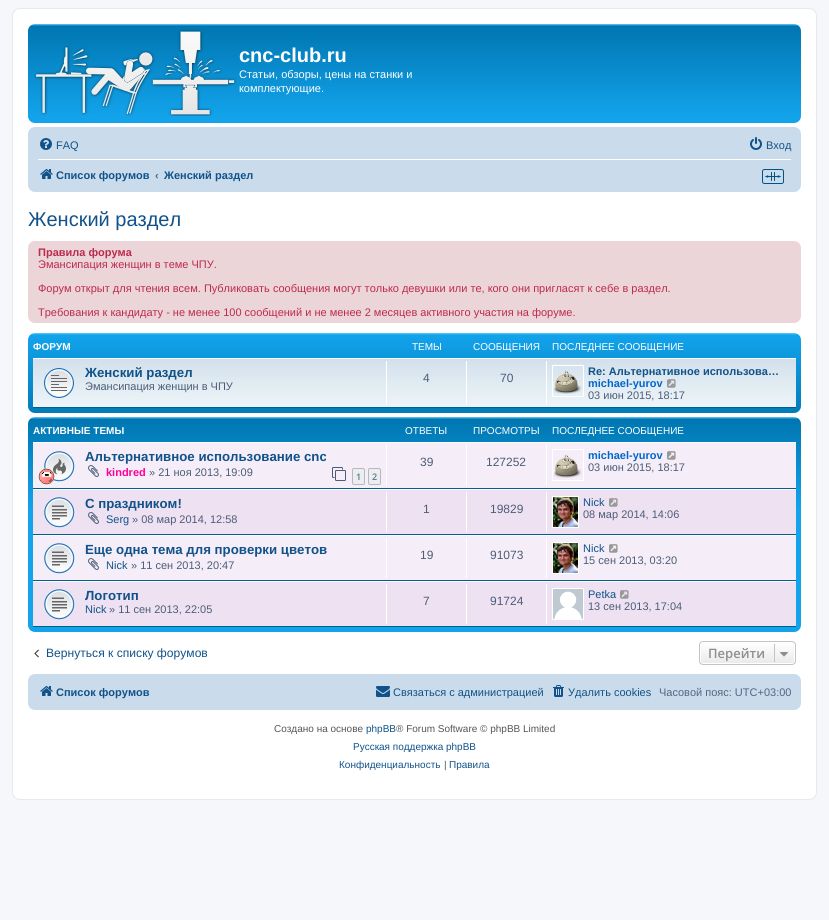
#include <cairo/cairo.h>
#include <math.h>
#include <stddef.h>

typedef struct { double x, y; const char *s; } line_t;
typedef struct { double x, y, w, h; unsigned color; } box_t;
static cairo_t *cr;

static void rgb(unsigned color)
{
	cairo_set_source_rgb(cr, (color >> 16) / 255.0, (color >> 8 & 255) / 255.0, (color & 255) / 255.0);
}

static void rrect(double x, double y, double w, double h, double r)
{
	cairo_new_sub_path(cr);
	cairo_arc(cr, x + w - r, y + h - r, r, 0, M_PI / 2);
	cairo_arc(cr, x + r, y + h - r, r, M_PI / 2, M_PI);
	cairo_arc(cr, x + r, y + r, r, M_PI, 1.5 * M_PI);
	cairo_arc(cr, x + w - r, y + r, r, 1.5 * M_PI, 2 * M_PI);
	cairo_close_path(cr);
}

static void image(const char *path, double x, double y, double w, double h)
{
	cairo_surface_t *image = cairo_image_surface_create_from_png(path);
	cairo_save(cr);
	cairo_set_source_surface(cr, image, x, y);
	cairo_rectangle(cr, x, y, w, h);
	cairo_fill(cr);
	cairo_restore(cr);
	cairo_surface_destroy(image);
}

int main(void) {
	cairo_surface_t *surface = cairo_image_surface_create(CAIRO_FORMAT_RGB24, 829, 920);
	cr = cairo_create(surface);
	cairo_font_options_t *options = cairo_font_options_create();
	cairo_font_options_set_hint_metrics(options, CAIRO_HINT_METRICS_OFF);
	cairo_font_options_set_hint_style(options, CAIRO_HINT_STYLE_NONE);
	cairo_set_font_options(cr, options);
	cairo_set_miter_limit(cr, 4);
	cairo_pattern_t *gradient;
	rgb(0xf5f7fa);
	cairo_paint(cr);
	rgb(0xffffff);
	rrect(12.5, 8.5, 804, 791, 7.5);
	cairo_fill_preserve(cr);
	rgb(0xe6e9ed);
	cairo_set_line_width(cr, 1);
	cairo_stroke(cr);
	gradient = cairo_pattern_create_linear(415, 24, 415, 123);
	cairo_pattern_add_color_stop_rgba(gradient, 0, 0.416, 0.808, 1, 1);
	cairo_pattern_add_color_stop_rgba(gradient, 0.02, 0, 0.463, 0.694, 1);
	cairo_pattern_add_color_stop_rgba(gradient, 0.93, 0.071, 0.639, 0.922, 1);
	cairo_pattern_add_color_stop_rgba(gradient, 1, 0.071, 0.639, 0.922, 1);
	cairo_set_source(cr, gradient);
	cairo_pattern_destroy(gradient);
	rrect(28, 24, 773, 99, 7);
	cairo_fill(cr);
	image("img/1.png", 34, 29, 203, 87);
	rgb(0xcadceb);
	rrect(28, 127, 773, 65, 7);
	cairo_fill(cr);
	image("img/2.png", 40, 138, 12, 12);
	image("img/3.png", 750, 137, 12, 13);
	rgb(0xffffff);
	cairo_rectangle(cr, 38, 159, 753, 1);
	cairo_fill(cr);
	image("img/4.png", 40, 169, 13, 10);
	image("img/5.png", 762, 169, 22, 15);
	rgb(0xecd5d8);
	rrect(28, 241, 773, 82, 7);
	cairo_fill(cr);
	gradient = cairo_pattern_create_linear(415, 333, 415, 425);
	cairo_pattern_add_color_stop_rgba(gradient, 0, 0.416, 0.808, 1, 1);
	cairo_pattern_add_color_stop_rgba(gradient, 0.02, 0.071, 0.639, 0.922, 1);
	cairo_pattern_add_color_stop_rgba(gradient, 1, 0, 0.463, 0.694, 1);
	cairo_set_source(cr, gradient);
	cairo_pattern_destroy(gradient);
	rrect(28, 333, 773, 80, 7);
	cairo_fill(cr);
	gradient = cairo_pattern_create_linear(415, 358, 415, 408);
	cairo_pattern_add_color_stop_rgba(gradient, 0, 0.824, 0.878, 0.922, 1);
	cairo_pattern_add_color_stop_rgba(gradient, 1, 0.933, 0.961, 0.976, 1);
	cairo_set_source(cr, gradient);
	cairo_pattern_destroy(gradient);
	cairo_rectangle(cr, 33, 359, 763, 48);
	cairo_fill(cr);
	rgb(0xffffff);
	cairo_rectangle(cr, 33, 358, 763, 1);
	cairo_fill(cr);
	rgb(0x00608f);
	cairo_rectangle(cr, 33, 407, 763, 1);
	cairo_fill(cr);
	image("img/6.png", 44, 368, 30, 30);
	{
		static const box_t items[] = {
			{386, 361, 1, 44, 0xffffff},
			{466, 361, 1, 44, 0xffffff},
			{546, 361, 1, 44, 0xffffff},
		};
		for (size_t i = 0; i < sizeof items / sizeof *items; i++) {
			rgb(items[i].color);
			cairo_rectangle(cr, items[i].x, items[i].y, items[i].w, items[i].h);
			cairo_fill(cr);
		}
	}
	cairo_rectangle(cr, 552.5, 365.5, 31, 31);
	cairo_stroke(cr);
	image("img/7.png", 554, 370, 28, 24);
	image("img/8.png", 667, 379, 9, 9);
	gradient = cairo_pattern_create_linear(415, 417, 415, 632);
	cairo_pattern_add_color_stop_rgba(gradient, 0, 0.416, 0.808, 1, 1);
	cairo_pattern_add_color_stop_rgba(gradient, 0.01, 0, 0.463, 0.694, 1);
	cairo_pattern_add_color_stop_rgba(gradient, 0.43, 0.071, 0.639, 0.922, 1);
	cairo_pattern_add_color_stop_rgba(gradient, 1, 0.071, 0.639, 0.922, 1);
	cairo_set_source(cr, gradient);
	cairo_pattern_destroy(gradient);
	rrect(28, 417, 773, 215, 7);
	cairo_fill(cr);
	{
		static const box_t items[] = {
			{33, 443, 763, 45, 0xf5edf7},
			{33, 442, 763, 1, 0xffffff},
			{33, 488, 763, 1, 0x00608f},
		};
		for (size_t i = 0; i < sizeof items / sizeof *items; i++) {
			rgb(items[i].color);
			cairo_rectangle(cr, items[i].x, items[i].y, items[i].w, items[i].h);
			cairo_fill(cr);
		}
	}
	image("img/9.png", 44, 451, 31, 31);
	image("img/10.png", 38, 468, 17, 17);
	image("img/11.png", 88, 465, 11, 12);
	image("img/12.png", 332, 467, 14, 14);
	rgb(0xecedee);
	rrect(352.5, 468.5, 12, 16, 1.5);
	cairo_fill_preserve(cr);
	rgb(0xb4bac0);
	cairo_stroke(cr);
	rgb(0xecedee);
	rrect(368.5, 468.5, 12, 16, 1.5);
	cairo_fill_preserve(cr);
	rgb(0xb4bac0);
	cairo_stroke(cr);
	{
		static const box_t items[] = {
			{386, 445, 1, 41, 0xffffff},
			{466, 445, 1, 41, 0xffffff},
			{546, 445, 1, 41, 0xffffff},
		};
		for (size_t i = 0; i < sizeof items / sizeof *items; i++) {
			rgb(items[i].color);
			cairo_rectangle(cr, items[i].x, items[i].y, items[i].w, items[i].h);
			cairo_fill(cr);
		}
	}
	cairo_rectangle(cr, 552.5, 449.5, 31, 31);
	cairo_stroke(cr);
	image("img/13.png", 554, 454, 28, 24);
	image("img/14.png", 667, 451, 9, 9);
	{
		static const box_t items[] = {
			{33, 490, 763, 44, 0xeee1f2},
			{33, 489, 763, 1, 0xffffff},
			{33, 534, 763, 1, 0x00608f},
		};
		for (size_t i = 0; i < sizeof items / sizeof *items; i++) {
			rgb(items[i].color);
			cairo_rectangle(cr, items[i].x, items[i].y, items[i].w, items[i].h);
			cairo_fill(cr);
		}
	}
	image("img/15.png", 44, 497, 31, 31);
	image("img/16.png", 88, 512, 11, 12);
	{
		static const box_t items[] = {
			{386, 492, 1, 40, 0xffffff},
			{466, 492, 1, 40, 0xffffff},
			{546, 492, 1, 40, 0xffffff},
		};
		for (size_t i = 0; i < sizeof items / sizeof *items; i++) {
			rgb(items[i].color);
			cairo_rectangle(cr, items[i].x, items[i].y, items[i].w, items[i].h);
			cairo_fill(cr);
		}
	}
	cairo_rectangle(cr, 552.5, 496.5, 26, 31);
	cairo_stroke(cr);
	image("img/17.png", 553, 497, 25, 30);
	image("img/18.png", 609, 498, 9, 9);
	{
		static const box_t items[] = {
			{33, 536, 763, 44, 0xf5edf7},
			{33, 535, 763, 1, 0xffffff},
			{33, 580, 763, 1, 0x00608f},
		};
		for (size_t i = 0; i < sizeof items / sizeof *items; i++) {
			rgb(items[i].color);
			cairo_rectangle(cr, items[i].x, items[i].y, items[i].w, items[i].h);
			cairo_fill(cr);
		}
	}
	image("img/19.png", 44, 543, 31, 31);
	image("img/11.png", 88, 558, 11, 12);
	{
		static const box_t items[] = {
			{386, 538, 1, 40, 0xffffff},
			{466, 538, 1, 40, 0xffffff},
			{546, 538, 1, 40, 0xffffff},
		};
		for (size_t i = 0; i < sizeof items / sizeof *items; i++) {
			rgb(items[i].color);
			cairo_rectangle(cr, items[i].x, items[i].y, items[i].w, items[i].h);
			cairo_fill(cr);
		}
	}
	cairo_rectangle(cr, 552.5, 542.5, 26, 31);
	cairo_stroke(cr);
	image("img/17.png", 553, 543, 25, 30);
	image("img/14.png", 609, 544, 9, 9);
	{
		static const box_t items[] = {
			{33, 582, 763, 44, 0xeee1f2},
			{33, 581, 763, 1, 0xffffff},
			{33, 626, 763, 1, 0x00608f},
		};
		for (size_t i = 0; i < sizeof items / sizeof *items; i++) {
			rgb(items[i].color);
			cairo_rectangle(cr, items[i].x, items[i].y, items[i].w, items[i].h);
			cairo_fill(cr);
		}
	}
	image("img/15.png", 44, 589, 31, 31);
	{
		static const box_t items[] = {
			{386, 584, 1, 40, 0xffffff},
			{466, 584, 1, 40, 0xffffff},
			{546, 584, 1, 40, 0xffffff},
		};
		for (size_t i = 0; i < sizeof items / sizeof *items; i++) {
			rgb(items[i].color);
			cairo_rectangle(cr, items[i].x, items[i].y, items[i].w, items[i].h);
			cairo_fill(cr);
		}
	}
	cairo_rectangle(cr, 552.5, 588.5, 31, 31);
	cairo_stroke(cr);
	image("img/20.png", 553, 589, 30, 30);
	image("img/18.png", 620, 590, 9, 9);
	image("img/21.png", 34, 649, 5, 9);
	cairo_save(cr);
	rrect(699, 641, 97, 24, 4);
	cairo_clip(cr);
	gradient = cairo_pattern_create_linear(748, 642, 748, 664);
	cairo_pattern_add_color_stop_rgba(gradient, 0, 1, 1, 1, 1);
	cairo_pattern_add_color_stop_rgba(gradient, 1, 0.914, 0.914, 0.914, 1);
	cairo_set_source(cr, gradient);
	cairo_pattern_destroy(gradient);
	cairo_rectangle(cr, 699, 642, 97, 22);
	cairo_fill(cr);
	cairo_restore(cr);
	rrect(700.5, 642.5, 94, 21, 2.5);
	cairo_stroke(cr);
	rrect(699.5, 641.5, 96, 23, 3.5);
	rgb(0xc7c3bf);
	cairo_stroke(cr);
	cairo_rectangle(cr, 774, 644, 1, 18);
	cairo_fill(cr);
	image("img/22.png", 780, 652, 8, 5);
	rgb(0xcadceb);
	rrect(28, 674, 773, 36, 7);
	cairo_fill(cr);
	image("img/4.png", 40, 686, 13, 10);
	image("img/23.png", 376, 686, 14, 11);
	image("img/24.png", 553, 685, 11, 12);
	cairo_select_font_face(cr, "Liberation Sans", CAIRO_FONT_SLANT_NORMAL, CAIRO_FONT_WEIGHT_BOLD);
	cairo_set_font_size(cr, 20);
	rgb(0xffffff);
	cairo_move_to(cr, 239, 62);
	cairo_show_text(cr, "cnc-club.ru");
	cairo_select_font_face(cr, "Liberation Sans", CAIRO_FONT_SLANT_NORMAL, CAIRO_FONT_WEIGHT_NORMAL);
	cairo_set_font_size(cr, 11);
	cairo_move_to(cr, 239, 78);
	cairo_show_text(cr, "Статьи, обзоры, цены на станки и");
	cairo_move_to(cr, 239, 92);
	cairo_show_text(cr, "комплектующие.");
	rgb(0x105289);
	cairo_move_to(cr, 56, 149);
	cairo_show_text(cr, "FAQ");
	cairo_move_to(cr, 766, 149);
	cairo_show_text(cr, "Вход");
	cairo_select_font_face(cr, "Liberation Sans", CAIRO_FONT_SLANT_NORMAL, CAIRO_FONT_WEIGHT_BOLD);
	cairo_move_to(cr, 56, 179);
	cairo_show_text(cr, "Список форумов");
	rgb(0x536482);
	cairo_move_to(cr, 155, 179);
	cairo_show_text(cr, "‹");
	rgb(0x105289);
	cairo_move_to(cr, 164, 179);
	cairo_show_text(cr, "Женский раздел");
	cairo_select_font_face(cr, "Liberation Sans", CAIRO_FONT_SLANT_NORMAL, CAIRO_FONT_WEIGHT_NORMAL);
	cairo_set_font_size(cr, 20);
	cairo_move_to(cr, 28, 226);
	cairo_show_text(cr, "Женский раздел");
	cairo_select_font_face(cr, "Liberation Sans", CAIRO_FONT_SLANT_NORMAL, CAIRO_FONT_WEIGHT_BOLD);
	cairo_set_font_size(cr, 11);
	rgb(0xbc2a4d);
	cairo_move_to(cr, 38, 256);
	cairo_show_text(cr, "Правила форума");
	cairo_select_font_face(cr, "Liberation Sans", CAIRO_FONT_SLANT_NORMAL, CAIRO_FONT_WEIGHT_NORMAL);
	{
		static const line_t items[] = {
			{38, 268, "Эмансипация женщин в теме ЧПУ."},
			{38, 292, "Форум открыт для чтения всем. Публиковать сообщения могут только девушки или те, кого они пригласят к себе в раздел."},
			{38, 316, "Требования к кандидату - не менее 100 сообщений и не менее 2 месяцев активного участия на форуме."},
		};
		for (size_t i = 0; i < sizeof items / sizeof *items; i++) {
			cairo_move_to(cr, items[i].x, items[i].y);
			cairo_show_text(cr, items[i].s);
		}
	}
	cairo_select_font_face(cr, "Liberation Sans", CAIRO_FONT_SLANT_NORMAL, CAIRO_FONT_WEIGHT_BOLD);
	cairo_set_font_size(cr, 10);
	rgb(0xffffff);
	cairo_move_to(cr, 33, 350);
	cairo_show_text(cr, "ФОРУМ");
	cairo_select_font_face(cr, "Liberation Sans", CAIRO_FONT_SLANT_NORMAL, CAIRO_FONT_WEIGHT_NORMAL);
	{
		static const line_t items[] = {
			{412, 350, "ТЕМЫ"},
			{473, 350, "СООБЩЕНИЯ"},
			{552, 350, "ПОСЛЕДНЕЕ СООБЩЕНИЕ"},
		};
		for (size_t i = 0; i < sizeof items / sizeof *items; i++) {
			cairo_move_to(cr, items[i].x, items[i].y);
			cairo_show_text(cr, items[i].s);
		}
	}
	cairo_select_font_face(cr, "Liberation Sans", CAIRO_FONT_SLANT_NORMAL, CAIRO_FONT_WEIGHT_BOLD);
	cairo_set_font_size(cr, 13.25);
	rgb(0x105289);
	cairo_move_to(cr, 85, 377);
	cairo_show_text(cr, "Женский раздел");
	cairo_select_font_face(cr, "Liberation Sans", CAIRO_FONT_SLANT_NORMAL, CAIRO_FONT_WEIGHT_NORMAL);
	cairo_set_font_size(cr, 11);
	rgb(0x4c5d77);
	cairo_move_to(cr, 85, 390);
	cairo_show_text(cr, "Эмансипация женщин в ЧПУ");
	cairo_set_font_size(cr, 12);
	cairo_move_to(cr, 423, 382);
	cairo_show_text(cr, "4");
	cairo_move_to(cr, 500, 382);
	cairo_show_text(cr, "70");
	cairo_select_font_face(cr, "Liberation Sans", CAIRO_FONT_SLANT_NORMAL, CAIRO_FONT_WEIGHT_BOLD);
	cairo_set_font_size(cr, 11);
	rgb(0x105289);
	cairo_move_to(cr, 588, 375);
	cairo_show_text(cr, "Re: Альтернативное использова…");
	rgb(0x0066cc);
	cairo_move_to(cr, 588, 387);
	cairo_show_text(cr, "michael-yurov");
	cairo_select_font_face(cr, "Liberation Sans", CAIRO_FONT_SLANT_NORMAL, CAIRO_FONT_WEIGHT_NORMAL);
	rgb(0x4c5d77);
	cairo_move_to(cr, 588, 399);
	cairo_show_text(cr, "03 июн 2015, 18:17");
	cairo_select_font_face(cr, "Liberation Sans", CAIRO_FONT_SLANT_NORMAL, CAIRO_FONT_WEIGHT_BOLD);
	cairo_set_font_size(cr, 10);
	rgb(0xffffff);
	cairo_move_to(cr, 33, 434);
	cairo_show_text(cr, "АКТИВНЫЕ ТЕМЫ");
	cairo_select_font_face(cr, "Liberation Sans", CAIRO_FONT_SLANT_NORMAL, CAIRO_FONT_WEIGHT_NORMAL);
	{
		static const line_t items[] = {
			{405, 434, "ОТВЕТЫ"},
			{473, 434, "ПРОСМОТРЫ"},
			{552, 434, "ПОСЛЕДНЕЕ СООБЩЕНИЕ"},
		};
		for (size_t i = 0; i < sizeof items / sizeof *items; i++) {
			cairo_move_to(cr, items[i].x, items[i].y);
			cairo_show_text(cr, items[i].s);
		}
	}
	cairo_select_font_face(cr, "Liberation Sans", CAIRO_FONT_SLANT_NORMAL, CAIRO_FONT_WEIGHT_BOLD);
	cairo_set_font_size(cr, 13.25);
	rgb(0x105289);
	cairo_move_to(cr, 85, 461);
	cairo_show_text(cr, "Альтернативное использование cnc");
	cairo_set_font_size(cr, 11);
	rgb(0xff0099);
	cairo_move_to(cr, 106, 476);
	cairo_show_text(cr, "kindred");
	cairo_select_font_face(cr, "Liberation Sans", CAIRO_FONT_SLANT_NORMAL, CAIRO_FONT_WEIGHT_NORMAL);
	rgb(0x4c5d77);
	cairo_move_to(cr, 149, 476);
	cairo_show_text(cr, "» 21 ноя 2013, 19:09");
	cairo_select_font_face(cr, "Open Sans SemiBold", CAIRO_FONT_SLANT_NORMAL, CAIRO_FONT_WEIGHT_NORMAL);
	cairo_set_font_size(cr, 9);
	rgb(0x5c758c);
	cairo_move_to(cr, 356, 480);
	cairo_show_text(cr, "1");
	cairo_move_to(cr, 372, 480);
	cairo_show_text(cr, "2");
	cairo_select_font_face(cr, "Liberation Sans", CAIRO_FONT_SLANT_NORMAL, CAIRO_FONT_WEIGHT_NORMAL);
	cairo_set_font_size(cr, 12);
	rgb(0x4c5d77);
	cairo_move_to(cr, 420, 466);
	cairo_show_text(cr, "39");
	cairo_move_to(cr, 486, 466);
	cairo_show_text(cr, "127252");
	cairo_select_font_face(cr, "Liberation Sans", CAIRO_FONT_SLANT_NORMAL, CAIRO_FONT_WEIGHT_BOLD);
	cairo_set_font_size(cr, 11);
	rgb(0x0066cc);
	cairo_move_to(cr, 588, 459);
	cairo_show_text(cr, "michael-yurov");
	cairo_select_font_face(cr, "Liberation Sans", CAIRO_FONT_SLANT_NORMAL, CAIRO_FONT_WEIGHT_NORMAL);
	rgb(0x4c5d77);
	cairo_move_to(cr, 588, 471);
	cairo_show_text(cr, "03 июн 2015, 18:17");
	cairo_select_font_face(cr, "Liberation Sans", CAIRO_FONT_SLANT_NORMAL, CAIRO_FONT_WEIGHT_BOLD);
	cairo_set_font_size(cr, 13.25);
	rgb(0x105289);
	cairo_move_to(cr, 85, 508);
	cairo_show_text(cr, "С праздником!");
	cairo_select_font_face(cr, "Liberation Sans", CAIRO_FONT_SLANT_NORMAL, CAIRO_FONT_WEIGHT_NORMAL);
	cairo_set_font_size(cr, 11);
	cairo_move_to(cr, 106, 523);
	cairo_show_text(cr, "Serg");
	rgb(0x4c5d77);
	cairo_move_to(cr, 132, 523);
	cairo_show_text(cr, "» 08 мар 2014, 12:58");
	cairo_set_font_size(cr, 12);
	cairo_move_to(cr, 423, 513);
	cairo_show_text(cr, "1");
	cairo_move_to(cr, 490, 513);
	cairo_show_text(cr, "19829");
	cairo_set_font_size(cr, 11);
	rgb(0x105289);
	cairo_move_to(cr, 583, 506);
	cairo_show_text(cr, "Nick");
	rgb(0x4c5d77);
	cairo_move_to(cr, 583, 518);
	cairo_show_text(cr, "08 мар 2014, 14:06");
	cairo_select_font_face(cr, "Liberation Sans", CAIRO_FONT_SLANT_NORMAL, CAIRO_FONT_WEIGHT_BOLD);
	cairo_set_font_size(cr, 13.25);
	rgb(0x105289);
	cairo_move_to(cr, 85, 554);
	cairo_show_text(cr, "Еще одна тема для проверки цветов");
	cairo_select_font_face(cr, "Liberation Sans", CAIRO_FONT_SLANT_NORMAL, CAIRO_FONT_WEIGHT_NORMAL);
	cairo_set_font_size(cr, 11);
	cairo_move_to(cr, 106, 569);
	cairo_show_text(cr, "Nick");
	rgb(0x4c5d77);
	cairo_move_to(cr, 131, 569);
	cairo_show_text(cr, "» 11 сен 2013, 20:47");
	cairo_set_font_size(cr, 12);
	cairo_move_to(cr, 420, 559);
	cairo_show_text(cr, "19");
	cairo_move_to(cr, 490, 559);
	cairo_show_text(cr, "91073");
	cairo_set_font_size(cr, 11);
	rgb(0x105289);
	cairo_move_to(cr, 583, 552);
	cairo_show_text(cr, "Nick");
	rgb(0x4c5d77);
	cairo_move_to(cr, 583, 564);
	cairo_show_text(cr, "15 сен 2013, 03:20");
	cairo_select_font_face(cr, "Liberation Sans", CAIRO_FONT_SLANT_NORMAL, CAIRO_FONT_WEIGHT_BOLD);
	cairo_set_font_size(cr, 13.25);
	rgb(0x105289);
	cairo_move_to(cr, 85, 600);
	cairo_show_text(cr, "Логотип");
	cairo_select_font_face(cr, "Liberation Sans", CAIRO_FONT_SLANT_NORMAL, CAIRO_FONT_WEIGHT_NORMAL);
	cairo_set_font_size(cr, 11);
	cairo_move_to(cr, 85, 613);
	cairo_show_text(cr, "Nick");
	rgb(0x4c5d77);
	cairo_move_to(cr, 109, 613);
	cairo_show_text(cr, "» 11 сен 2013, 22:05");
	cairo_set_font_size(cr, 12);
	cairo_move_to(cr, 423, 605);
	cairo_show_text(cr, "7");
	cairo_move_to(cr, 490, 605);
	cairo_show_text(cr, "91724");
	cairo_set_font_size(cr, 11);
	rgb(0x105289);
	cairo_move_to(cr, 588, 598);
	cairo_show_text(cr, "Petka");
	rgb(0x4c5d77);
	cairo_move_to(cr, 588, 610);
	cairo_show_text(cr, "13 сен 2013, 17:04");
	cairo_set_font_size(cr, 12.1);
	rgb(0x105289);
	cairo_move_to(cr, 46, 657);
	cairo_show_text(cr, "Вернуться к списку форумов");
	cairo_select_font_face(cr, "Open Sans SemiBold", CAIRO_FONT_SLANT_NORMAL, CAIRO_FONT_WEIGHT_NORMAL);
	cairo_set_font_size(cr, 13);
	rgb(0x8f8f8f);
	cairo_move_to(cr, 708, 658);
	cairo_show_text(cr, "Перейти");
	cairo_select_font_face(cr, "Liberation Sans", CAIRO_FONT_SLANT_NORMAL, CAIRO_FONT_WEIGHT_BOLD);
	cairo_set_font_size(cr, 11);
	rgb(0x105289);
	cairo_move_to(cr, 56, 696);
	cairo_show_text(cr, "Список форумов");
	cairo_select_font_face(cr, "Liberation Sans", CAIRO_FONT_SLANT_NORMAL, CAIRO_FONT_WEIGHT_NORMAL);
	cairo_move_to(cr, 393, 696);
	cairo_show_text(cr, "Связаться с администрацией");
	cairo_move_to(cr, 568, 696);
	cairo_show_text(cr, "Удалить cookies");
	rgb(0x536482);
	cairo_move_to(cr, 659, 696);
	cairo_show_text(cr, "Часовой пояс: UTC+03:00");
	cairo_set_font_size(cr, 10);
	rgb(0x555555);
	cairo_move_to(cr, 274, 732);
	cairo_show_text(cr, "Создано на основе");
	rgb(0x105289);
	cairo_move_to(cr, 366, 732);
	cairo_show_text(cr, "phpBB");
	rgb(0x555555);
	cairo_move_to(cr, 396, 732);
	cairo_show_text(cr, "® Forum Software © phpBB Limited");
	rgb(0x105289);
	cairo_move_to(cr, 353, 750);
	cairo_show_text(cr, "Русская поддержка phpBB");
	cairo_move_to(cr, 339, 768);
	cairo_show_text(cr, "Конфиденциальность");
	rgb(0x555555);
	cairo_move_to(cr, 444, 768);
	cairo_show_text(cr, "|");
	rgb(0x105289);
	cairo_move_to(cr, 449, 768);
	cairo_show_text(cr, "Правила");
	cairo_surface_write_to_png(surface, "page.png");
	cairo_font_options_destroy(options);
	cairo_destroy(cr);
	cairo_surface_destroy(surface);
	return 0;
}
